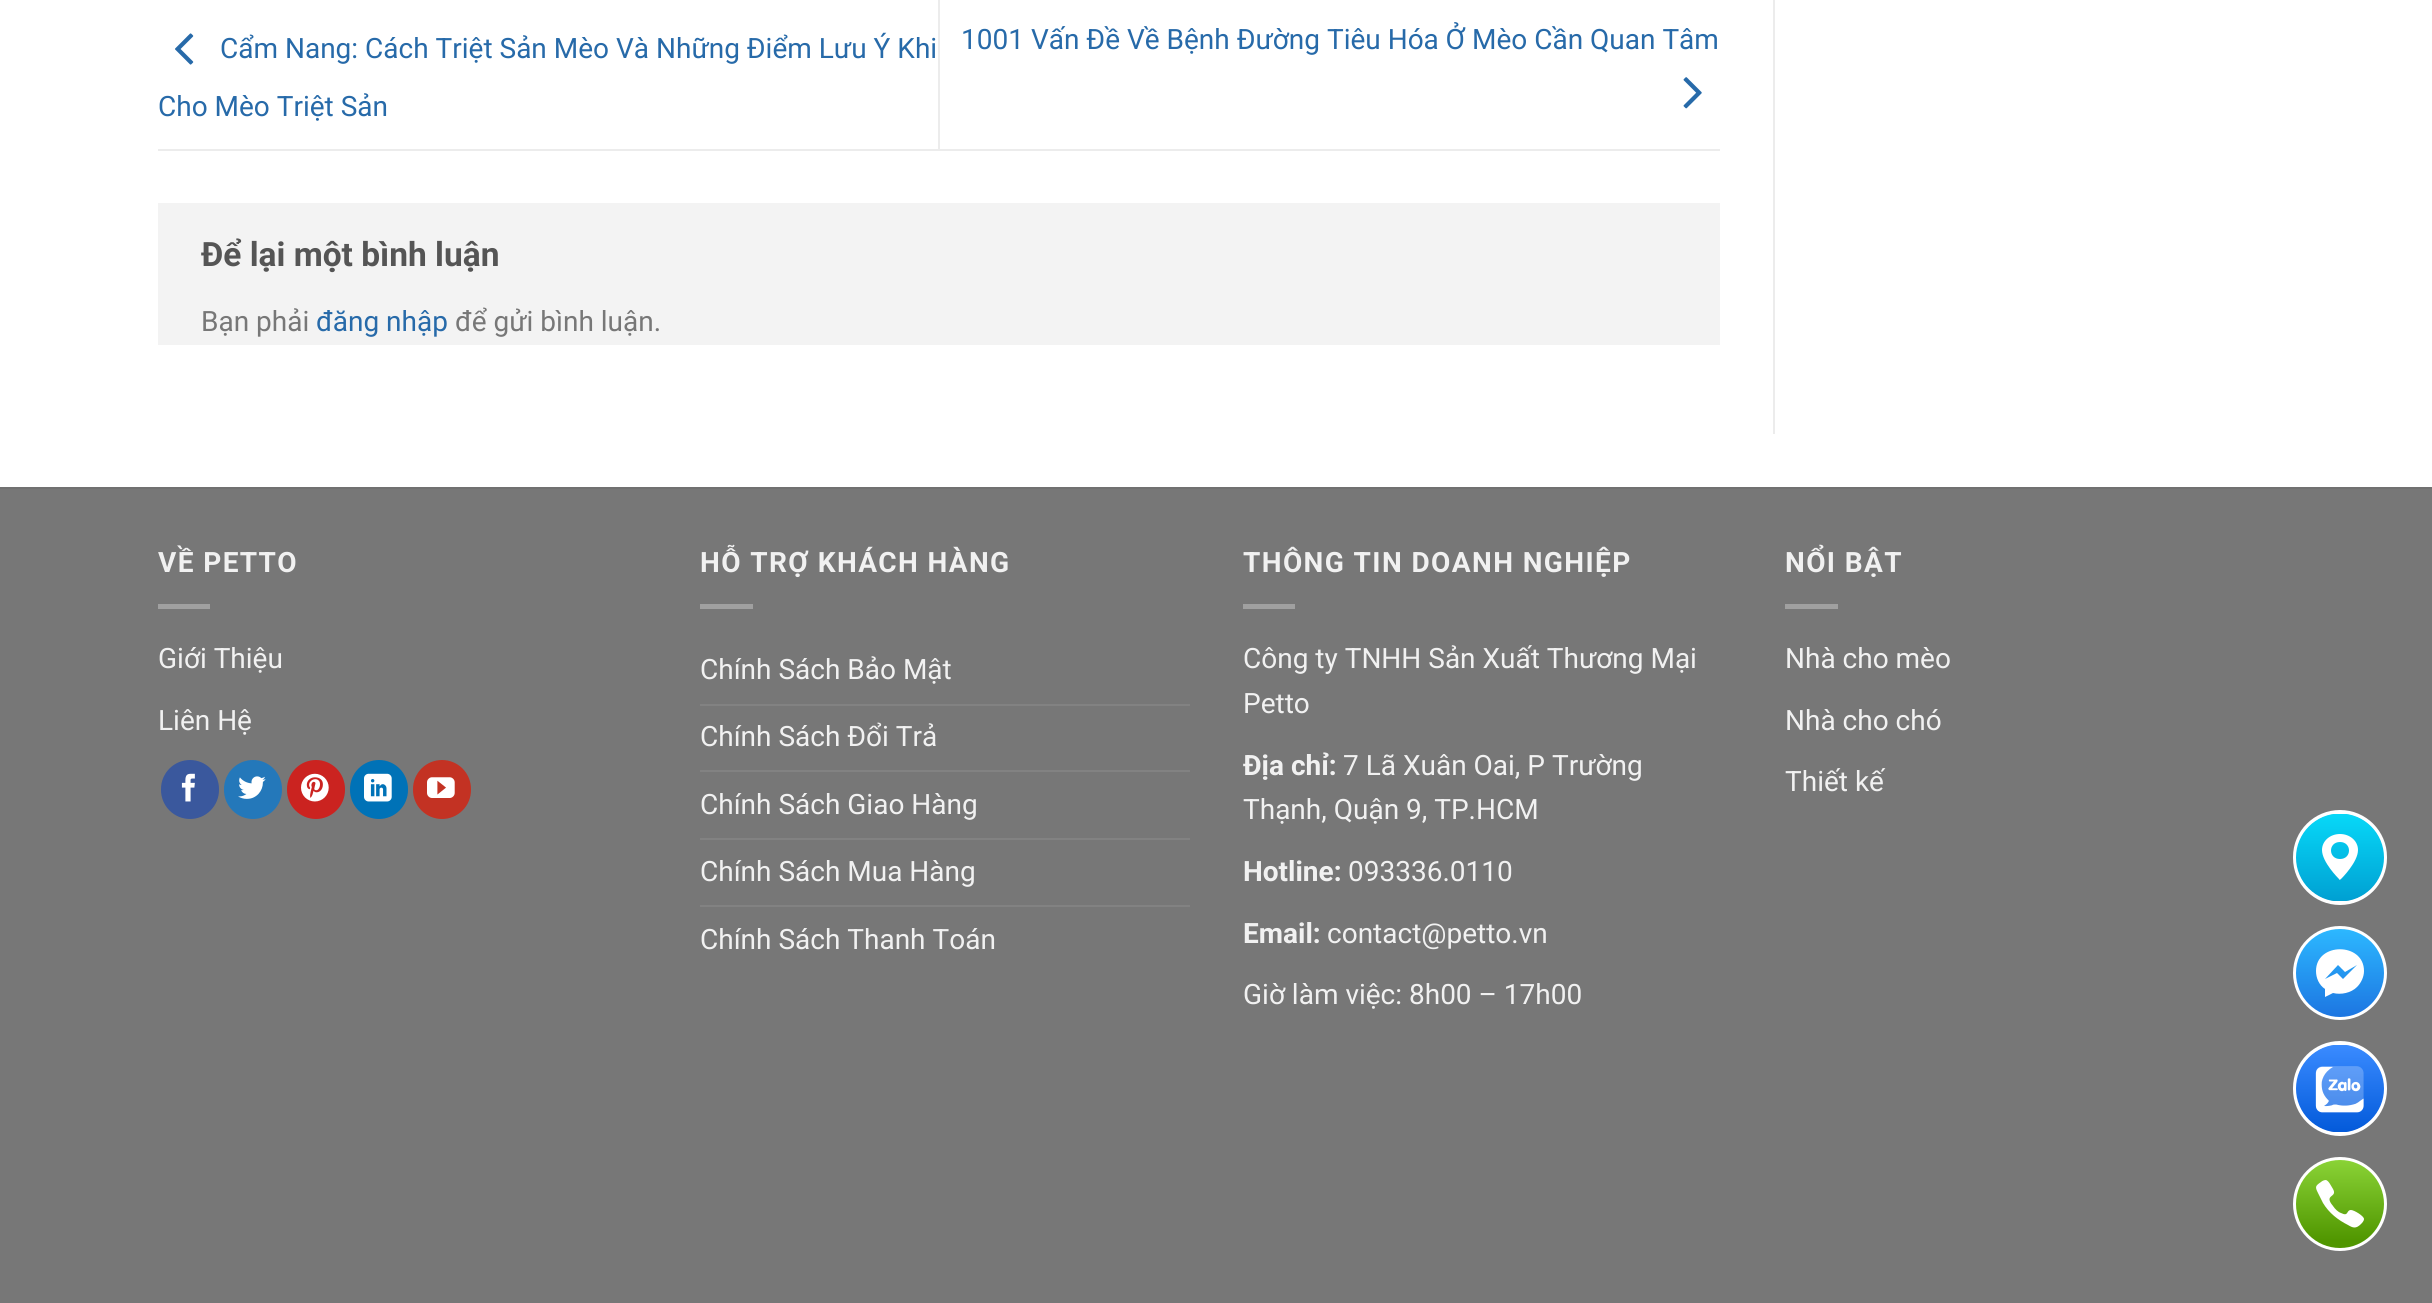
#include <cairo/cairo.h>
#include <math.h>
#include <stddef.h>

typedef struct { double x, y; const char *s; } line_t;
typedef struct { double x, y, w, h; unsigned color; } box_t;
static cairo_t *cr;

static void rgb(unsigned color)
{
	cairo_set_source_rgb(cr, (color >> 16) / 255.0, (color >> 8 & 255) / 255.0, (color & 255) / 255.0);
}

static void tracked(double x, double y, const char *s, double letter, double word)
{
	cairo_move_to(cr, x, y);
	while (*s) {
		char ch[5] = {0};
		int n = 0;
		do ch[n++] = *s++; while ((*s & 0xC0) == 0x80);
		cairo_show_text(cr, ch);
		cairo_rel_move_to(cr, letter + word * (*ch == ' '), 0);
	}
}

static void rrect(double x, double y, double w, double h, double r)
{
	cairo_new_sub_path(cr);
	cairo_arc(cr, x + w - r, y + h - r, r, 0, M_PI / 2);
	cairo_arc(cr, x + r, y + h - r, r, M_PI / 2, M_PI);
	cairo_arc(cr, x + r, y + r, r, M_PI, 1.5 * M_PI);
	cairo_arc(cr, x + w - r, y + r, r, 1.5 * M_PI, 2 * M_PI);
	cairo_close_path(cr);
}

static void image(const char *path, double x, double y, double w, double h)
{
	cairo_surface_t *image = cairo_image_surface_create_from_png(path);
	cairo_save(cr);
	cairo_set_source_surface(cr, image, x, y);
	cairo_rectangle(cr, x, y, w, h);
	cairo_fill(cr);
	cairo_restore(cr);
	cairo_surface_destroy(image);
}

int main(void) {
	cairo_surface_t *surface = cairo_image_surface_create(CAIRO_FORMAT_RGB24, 2432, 1303);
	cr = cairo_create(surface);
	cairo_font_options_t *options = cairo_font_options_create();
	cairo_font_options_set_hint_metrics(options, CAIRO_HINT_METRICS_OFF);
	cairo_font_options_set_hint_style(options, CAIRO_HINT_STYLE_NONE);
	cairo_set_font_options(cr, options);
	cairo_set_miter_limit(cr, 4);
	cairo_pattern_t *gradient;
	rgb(0xffffff);
	cairo_paint(cr);
	rgb(0xececec);
	cairo_rectangle(cr, 158, 149, 1562, 2);
	cairo_fill(cr);
	image("img/1.png", 175, 33, 19, 32);
	cairo_rectangle(cr, 938, 0, 2, 149);
	cairo_fill(cr);
	image("img/2.png", 1683, 77, 19, 32);
	{
		static const box_t items[] = {
			{158, 203, 1562, 142, 0xf3f3f3},
			{1773, 0, 2, 434, 0xececec},
			{0, 489, 2432, 814, 0x777777},
			{0, 487, 2432, 2, 0x717171},
			{158, 604, 52, 5, 0xa0a0a0},
		};
		for (size_t i = 0; i < sizeof items / sizeof *items; i++) {
			rgb(items[i].color);
			cairo_rectangle(cr, items[i].x, items[i].y, items[i].w, items[i].h);
			cairo_fill(cr);
		}
	}
	rgb(0x3a589d);
	rrect(162, 761, 56, 57, 28);
	cairo_fill_preserve(cr);
	cairo_stroke(cr);
	image("img/3.png", 181, 773, 14, 29);
	rgb(0x2478ba);
	rrect(225, 761, 56, 57, 28);
	cairo_fill_preserve(cr);
	cairo_stroke(cr);
	image("img/4.png", 238, 776, 28, 23);
	rgb(0xcb2320);
	rrect(288, 761, 56, 57, 28);
	cairo_fill_preserve(cr);
	cairo_stroke(cr);
	image("img/5.png", 301, 773, 28, 29);
	rgb(0x0072b7);
	rrect(351, 761, 56, 57, 28);
	cairo_fill_preserve(cr);
	cairo_stroke(cr);
	image("img/6.png", 364, 773, 28, 29);
	rgb(0xc33223);
	rrect(414, 761, 56, 57, 28);
	cairo_fill_preserve(cr);
	cairo_stroke(cr);
	image("img/7.png", 427, 777, 28, 21);
	{
		static const box_t items[] = {
			{700, 604, 53, 5, 0xa0a0a0},
			{700, 704, 490, 2, 0x828282},
			{700, 770, 490, 2, 0x828282},
			{700, 838, 490, 2, 0x828282},
			{700, 905, 490, 2, 0x828282},
			{1243, 604, 52, 5, 0xa0a0a0},
			{1785, 604, 53, 5, 0xa0a0a0},
		};
		for (size_t i = 0; i < sizeof items / sizeof *items; i++) {
			rgb(items[i].color);
			cairo_rectangle(cr, items[i].x, items[i].y, items[i].w, items[i].h);
			cairo_fill(cr);
		}
	}
	rrect(2295, 812, 90, 91, 45);
	rgb(0xffffff);
	cairo_set_line_width(cr, 4);
	cairo_stroke(cr);
	cairo_save(cr);
	cairo_rectangle(cr, 2296, 814, 88, 87);
	cairo_clip(cr);
	gradient = cairo_pattern_create_linear(2340, 814, 2340, 901);
	cairo_pattern_add_color_stop_rgba(gradient, 0, 0.027, 0.847, 0.973, 1);
	cairo_pattern_add_color_stop_rgba(gradient, 1, 0, 0.627, 0.824, 1);
	cairo_set_source(cr, gradient);
	cairo_pattern_destroy(gradient);
	cairo_arc(cr, 2340, 857.5, 44, 0, 2 * M_PI);
	cairo_fill(cr);
	cairo_restore(cr);
	cairo_new_path(cr);
	cairo_move_to(cr, 2340, 834);
	cairo_curve_to(cr, 2330, 834, 2322, 841, 2322, 850);
	cairo_curve_to(cr, 2322, 862, 2338, 878, 2339, 879);
	cairo_curve_to(cr, 2339, 880, 2340, 880, 2341, 879);
	cairo_curve_to(cr, 2342, 878, 2358, 862, 2358, 850);
	cairo_curve_to(cr, 2358, 841, 2350, 834, 2340, 834);
	cairo_close_path(cr);
	cairo_move_to(cr, 2340, 859);
	cairo_curve_to(cr, 2328, 859, 2328, 842, 2340, 842);
	cairo_curve_to(cr, 2352, 842, 2352, 859, 2340, 859);
	cairo_close_path(cr);
	cairo_fill(cr);
	cairo_arc(cr, 2340, 973, 45, 0, 2 * M_PI);
	cairo_stroke(cr);
	gradient = cairo_pattern_create_linear(2339, 1015, 2339, 930);
	cairo_pattern_add_color_stop_rgba(gradient, 0, 0.114, 0.467, 0.886, 1);
	cairo_pattern_add_color_stop_rgba(gradient, 1, 0.173, 0.718, 1, 1);
	cairo_set_source(cr, gradient);
	cairo_pattern_destroy(gradient);
	cairo_arc(cr, 2340, 973, 44, 0, 2 * M_PI);
	cairo_fill(cr);
	rgb(0xffffff);
	cairo_set_fill_rule(cr, CAIRO_FILL_RULE_EVEN_ODD);
	cairo_new_path(cr);
	cairo_move_to(cr, 2316, 971);
	cairo_curve_to(cr, 2316, 942, 2364, 942, 2364, 971);
	cairo_curve_to(cr, 2364, 977, 2361, 983, 2357, 987);
	cairo_curve_to(cr, 2351, 993, 2341, 995, 2333, 993);
	cairo_line_to(cr, 2325, 997);
	cairo_line_to(cr, 2325, 989);
	cairo_curve_to(cr, 2319, 985, 2316, 978, 2316, 971);
	cairo_close_path(cr);
	cairo_move_to(cr, 2337, 973);
	cairo_line_to(cr, 2343, 979);
	cairo_line_to(cr, 2357, 965);
	cairo_line_to(cr, 2345, 972);
	cairo_line_to(cr, 2338, 965);
	cairo_line_to(cr, 2325, 979);
	cairo_close_path(cr);
	cairo_fill(cr);
	rrect(2295, 1043, 90, 91, 45);
	cairo_stroke(cr);
	image("img/8.png", 2296, 1045, 88, 87);
	cairo_arc(cr, 2340, 1204, 45, 0, 2 * M_PI);
	cairo_stroke(cr);
	gradient = cairo_pattern_create_linear(2340, 1160, 2340, 1241);
	cairo_pattern_add_color_stop_rgba(gradient, 0, 0.541, 0.827, 0.212, 1);
	cairo_pattern_add_color_stop_rgba(gradient, 1, 0.314, 0.588, 0, 1);
	cairo_set_source(cr, gradient);
	cairo_pattern_destroy(gradient);
	cairo_arc(cr, 2340, 1204, 44, 0, 2 * M_PI);
	cairo_fill(cr);
	rgb(0xffffff);
	cairo_new_path(cr);
	cairo_move_to(cr, 2326, 1180);
	cairo_curve_to(cr, 2329, 1181, 2331, 1186, 2333, 1189);
	cairo_curve_to(cr, 2338, 1198, 2323, 1194, 2333, 1206);
	cairo_curve_to(cr, 2335, 1209, 2338, 1212, 2341, 1213);
	cairo_curve_to(cr, 2349, 1217, 2346, 1210, 2351, 1210);
	cairo_curve_to(cr, 2354, 1210, 2364, 1216, 2364, 1219);
	cairo_curve_to(cr, 2364, 1221, 2362, 1223, 2361, 1224);
	cairo_curve_to(cr, 2356, 1229, 2353, 1228, 2348, 1225);
	cairo_curve_to(cr, 2338, 1220, 2329, 1213, 2323, 1203);
	cairo_line_to(cr, 2318, 1193);
	cairo_curve_to(cr, 2315, 1187, 2315, 1186, 2321, 1182);
	cairo_curve_to(cr, 2322, 1181, 2324, 1180, 2326, 1180);
	cairo_close_path(cr);
	cairo_fill(cr);
	cairo_select_font_face(cr, "Roboto", CAIRO_FONT_SLANT_NORMAL, CAIRO_FONT_WEIGHT_NORMAL);
	cairo_set_font_size(cr, 28);
	rgb(0x276aa9);
	{
		static const line_t items[] = {
			{220, 58, "Cẩm Nang: Cách Triệt Sản Mèo Và Những Điểm Lưu Ý Khi"},
			{158, 116, "Cho Mèo Triệt Sản"},
			{961, 49, "1001 Vấn Đề Về Bệnh Đường Tiêu Hóa Ở Mèo Cần Quan Tâm"},
		};
		for (size_t i = 0; i < sizeof items / sizeof *items; i++) {
			cairo_move_to(cr, items[i].x, items[i].y);
			cairo_show_text(cr, items[i].s);
		}
	}
	cairo_select_font_face(cr, "Roboto", CAIRO_FONT_SLANT_NORMAL, CAIRO_FONT_WEIGHT_BOLD);
	cairo_set_font_size(cr, 33.5);
	rgb(0x555555);
	cairo_move_to(cr, 201, 266);
	cairo_show_text(cr, "Để lại một bình luận");
	cairo_select_font_face(cr, "Roboto", CAIRO_FONT_SLANT_NORMAL, CAIRO_FONT_WEIGHT_NORMAL);
	cairo_set_font_size(cr, 28);
	rgb(0x777777);
	cairo_move_to(cr, 201, 331);
	cairo_show_text(cr, "Bạn phải");
	rgb(0x276aa9);
	cairo_move_to(cr, 316, 331);
	cairo_show_text(cr, "đăng nhập");
	rgb(0x777777);
	cairo_move_to(cr, 455, 331);
	cairo_show_text(cr, "để gửi bình luận.");
	cairo_select_font_face(cr, "Roboto", CAIRO_FONT_SLANT_NORMAL, CAIRO_FONT_WEIGHT_BOLD);
	rgb(0xf1f1f1);
	tracked(158, 572, "VỀ PETTO", 1.4, 0);
	cairo_select_font_face(cr, "Roboto", CAIRO_FONT_SLANT_NORMAL, CAIRO_FONT_WEIGHT_NORMAL);
	cairo_move_to(cr, 158, 668);
	cairo_show_text(cr, "Giới Thiệu");
	cairo_move_to(cr, 158, 730);
	cairo_show_text(cr, "Liên Hệ");
	cairo_select_font_face(cr, "Roboto", CAIRO_FONT_SLANT_NORMAL, CAIRO_FONT_WEIGHT_BOLD);
	tracked(700, 572, "HỖ TRỢ KHÁCH HÀNG", 1.4, 0);
	cairo_select_font_face(cr, "Roboto", CAIRO_FONT_SLANT_NORMAL, CAIRO_FONT_WEIGHT_NORMAL);
	{
		static const line_t items[] = {
			{700, 679, "Chính Sách Bảo Mật"},
			{700, 746, "Chính Sách Đổi Trả"},
			{700, 814, "Chính Sách Giao Hàng"},
			{700, 881, "Chính Sách Mua Hàng"},
			{700, 949, "Chính Sách Thanh Toán"},
		};
		for (size_t i = 0; i < sizeof items / sizeof *items; i++) {
			cairo_move_to(cr, items[i].x, items[i].y);
			cairo_show_text(cr, items[i].s);
		}
	}
	cairo_select_font_face(cr, "Roboto", CAIRO_FONT_SLANT_NORMAL, CAIRO_FONT_WEIGHT_BOLD);
	tracked(1243, 572, "THÔNG TIN DOANH NGHIỆP", 1.4, 0);
	cairo_select_font_face(cr, "Roboto", CAIRO_FONT_SLANT_NORMAL, CAIRO_FONT_WEIGHT_NORMAL);
	cairo_move_to(cr, 1243, 668);
	cairo_show_text(cr, "Công ty TNHH Sản Xuất Thương Mại");
	cairo_move_to(cr, 1243, 713);
	cairo_show_text(cr, "Petto");
	cairo_select_font_face(cr, "Roboto", CAIRO_FONT_SLANT_NORMAL, CAIRO_FONT_WEIGHT_BOLD);
	cairo_move_to(cr, 1243, 775);
	cairo_show_text(cr, "Địa chỉ:");
	cairo_select_font_face(cr, "Roboto", CAIRO_FONT_SLANT_NORMAL, CAIRO_FONT_WEIGHT_NORMAL);
	cairo_move_to(cr, 1343, 775);
	cairo_show_text(cr, "7 Lã Xuân Oai, P Trường");
	cairo_move_to(cr, 1243, 819);
	cairo_show_text(cr, "Thạnh, Quận 9, TP.HCM");
	cairo_select_font_face(cr, "Roboto", CAIRO_FONT_SLANT_NORMAL, CAIRO_FONT_WEIGHT_BOLD);
	cairo_move_to(cr, 1243, 881);
	cairo_show_text(cr, "Hotline:");
	cairo_select_font_face(cr, "Roboto", CAIRO_FONT_SLANT_NORMAL, CAIRO_FONT_WEIGHT_NORMAL);
	cairo_move_to(cr, 1348, 881);
	cairo_show_text(cr, "093336.0110");
	cairo_select_font_face(cr, "Roboto", CAIRO_FONT_SLANT_NORMAL, CAIRO_FONT_WEIGHT_BOLD);
	cairo_move_to(cr, 1243, 943);
	cairo_show_text(cr, "Email:");
	cairo_select_font_face(cr, "Roboto", CAIRO_FONT_SLANT_NORMAL, CAIRO_FONT_WEIGHT_NORMAL);
	cairo_move_to(cr, 1327, 943);
	cairo_show_text(cr, "contact@petto.vn");
	cairo_move_to(cr, 1243, 1004);
	cairo_show_text(cr, "Giờ làm việc: 8h00 – 17h00");
	cairo_select_font_face(cr, "Roboto", CAIRO_FONT_SLANT_NORMAL, CAIRO_FONT_WEIGHT_BOLD);
	tracked(1785, 572, "NỔI BẬT", 1.4, 0);
	cairo_select_font_face(cr, "Roboto", CAIRO_FONT_SLANT_NORMAL, CAIRO_FONT_WEIGHT_NORMAL);
	{
		static const line_t items[] = {
			{1785, 668, "Nhà cho mèo"},
			{1785, 730, "Nhà cho chó"},
			{1785, 791, "Thiết kế"},
		};
		for (size_t i = 0; i < sizeof items / sizeof *items; i++) {
			cairo_move_to(cr, items[i].x, items[i].y);
			cairo_show_text(cr, items[i].s);
		}
	}
	cairo_surface_write_to_png(surface, "page.png");
	cairo_font_options_destroy(options);
	cairo_destroy(cr);
	cairo_surface_destroy(surface);
	return 0;
}
